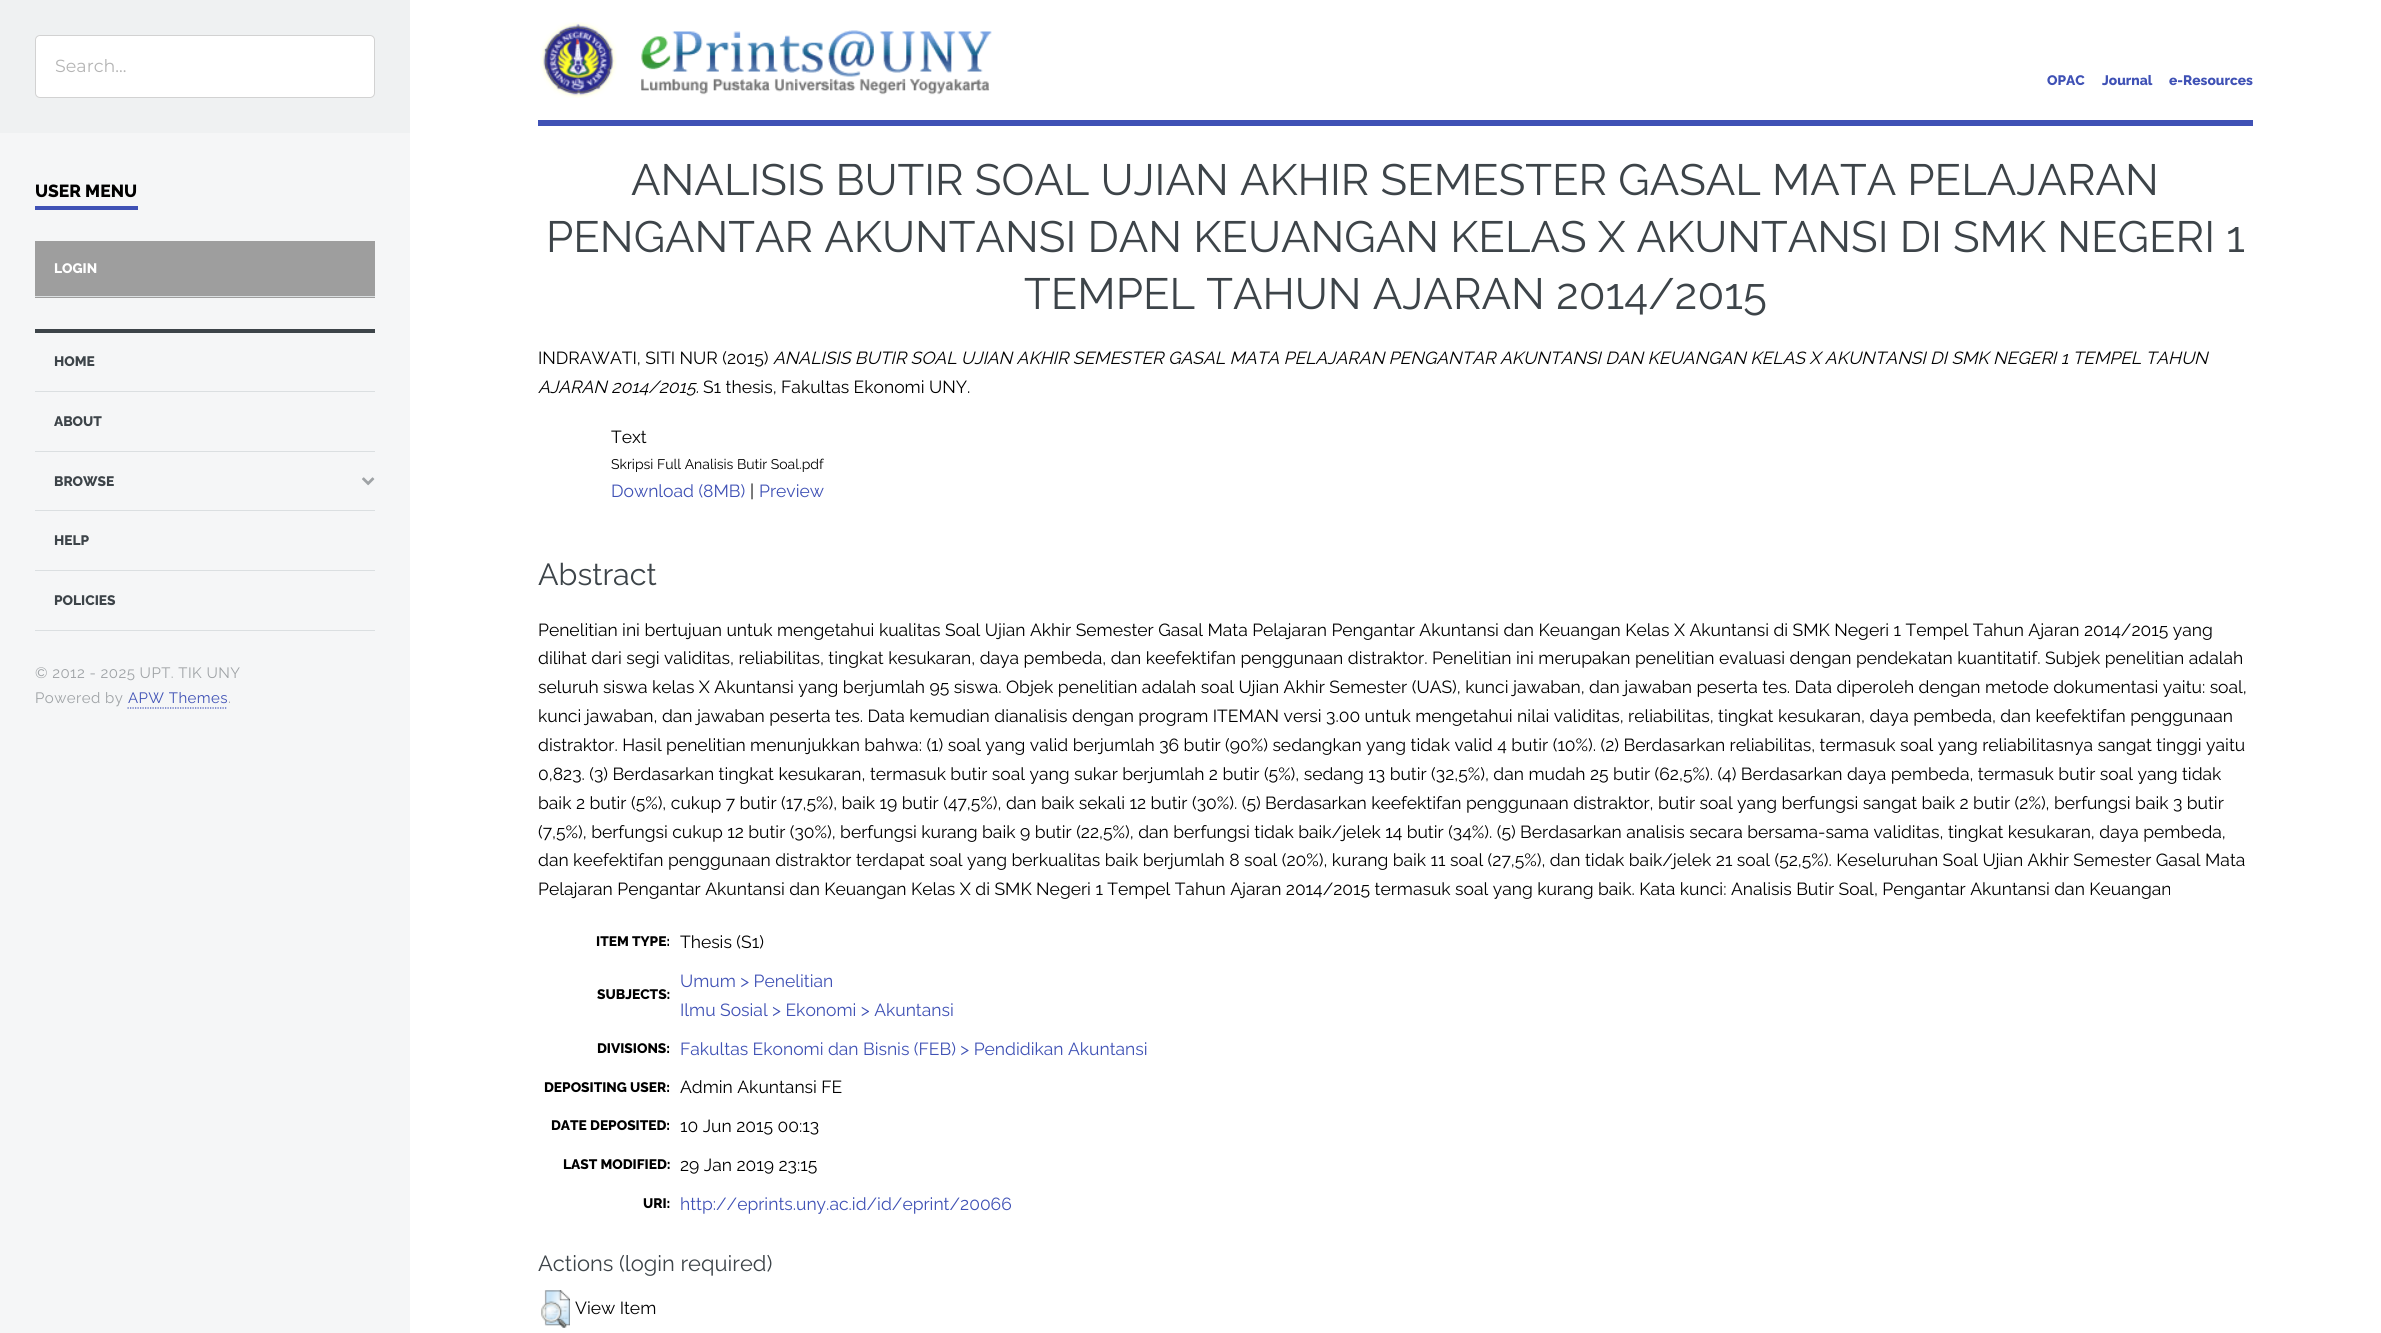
#include <cairo/cairo.h>
#include <math.h>
#include <stddef.h>

typedef struct { double x, y; const char *s; } line_t;
typedef struct { double x, y, w, h; unsigned color; } box_t;
static cairo_t *cr;

static void rgb(unsigned color)
{
	cairo_set_source_rgb(cr, (color >> 16) / 255.0, (color >> 8 & 255) / 255.0, (color & 255) / 255.0);
}

static void tracked(double x, double y, const char *s, double letter, double word)
{
	cairo_move_to(cr, x, y);
	while (*s) {
		char ch[5] = {0};
		int n = 0;
		do ch[n++] = *s++; while ((*s & 0xC0) == 0x80);
		cairo_show_text(cr, ch);
		cairo_rel_move_to(cr, letter + word * (*ch == ' '), 0);
	}
}

static void rrect(double x, double y, double w, double h, double r)
{
	cairo_new_sub_path(cr);
	cairo_arc(cr, x + w - r, y + h - r, r, 0, M_PI / 2);
	cairo_arc(cr, x + r, y + h - r, r, M_PI / 2, M_PI);
	cairo_arc(cr, x + r, y + r, r, M_PI, 1.5 * M_PI);
	cairo_arc(cr, x + w - r, y + r, r, 1.5 * M_PI, 2 * M_PI);
	cairo_close_path(cr);
}

static void image(const char *path, double x, double y, double w, double h)
{
	cairo_surface_t *image = cairo_image_surface_create_from_png(path);
	cairo_save(cr);
	cairo_set_source_surface(cr, image, x, y);
	cairo_rectangle(cr, x, y, w, h);
	cairo_fill(cr);
	cairo_restore(cr);
	cairo_surface_destroy(image);
}

int main(void) {
	cairo_surface_t *surface = cairo_image_surface_create(CAIRO_FORMAT_RGB24, 2381, 1333);
	cr = cairo_create(surface);
	cairo_font_options_t *options = cairo_font_options_create();
	cairo_font_options_set_hint_metrics(options, CAIRO_HINT_METRICS_OFF);
	cairo_font_options_set_hint_style(options, CAIRO_HINT_STYLE_NONE);
	cairo_set_font_options(cr, options);
	cairo_set_miter_limit(cr, 4);
	rgb(0xffffff);
	cairo_paint(cr);
	rgb(0xf5f6f7);
	cairo_rectangle(cr, 0, 133, 410, 1200);
	cairo_fill(cr);
	rgb(0xeff1f2);
	cairo_rectangle(cr, 0, 0, 410, 133);
	cairo_fill(cr);
	rgb(0xffffff);
	rrect(35.5, 35.5, 339, 62, 4.5);
	cairo_fill_preserve(cr);
	rgb(0xd2d2d2);
	cairo_set_line_width(cr, 1);
	cairo_stroke(cr);
	{
		static const box_t items[] = {
			{35, 206, 103, 4, 0x3f51b5},
			{35, 241, 340, 57, 0x9e9e9e},
			{35, 296, 340, 1, 0xdbdfe1},
			{35, 329, 340, 4, 0x3d4449},
			{35, 391, 340, 1, 0xdbdfe1},
			{35, 451, 340, 1, 0xdbdfe1},
		};
		for (size_t i = 0; i < sizeof items / sizeof *items; i++) {
			rgb(items[i].color);
			cairo_rectangle(cr, items[i].x, items[i].y, items[i].w, items[i].h);
			cairo_fill(cr);
		}
	}
	image("img/1.png", 362, 477, 13, 9);
	{
		static const box_t items[] = {
			{35, 510, 340, 1, 0xdbdfe1},
			{35, 570, 340, 1, 0xdbdfe1},
			{35, 630, 340, 1, 0xdbdfe1},
		};
		for (size_t i = 0; i < sizeof items / sizeof *items; i++) {
			rgb(items[i].color);
			cairo_rectangle(cr, items[i].x, items[i].y, items[i].w, items[i].h);
			cairo_fill(cr);
		}
	}
	cairo_new_path(cr);
	cairo_move_to(cr, 127.5, 708);
	cairo_line_to(cr, 227.5, 708);
	rgb(0x3f51b5);
	cairo_set_line_width(cr, 1.2);
	cairo_set_dash(cr, (double[]){1.25, 1.25}, 2, 0);
	cairo_stroke(cr);
	cairo_rectangle(cr, 538, 120, 1715, 6);
	cairo_fill(cr);
	image("img/2.png", 540, 22, 452, 76);
	image("img/3.png", 541, 1290, 29, 38);
	cairo_select_font_face(cr, "Montserrat", CAIRO_FONT_SLANT_NORMAL, CAIRO_FONT_WEIGHT_NORMAL);
	cairo_set_font_size(cr, 17.5);
	rgb(0xb5b5b5);
	cairo_move_to(cr, 55, 72);
	cairo_show_text(cr, "Search...");
	cairo_select_font_face(cr, "Raleway ExtraBold", CAIRO_FONT_SLANT_NORMAL, CAIRO_FONT_WEIGHT_NORMAL);
	rgb(0x000000);
	cairo_move_to(cr, 35, 197);
	cairo_show_text(cr, "USER MENU");
	cairo_set_font_size(cr, 13.75);
	rgb(0xffffff);
	cairo_move_to(cr, 54, 273);
	cairo_show_text(cr, "LOGIN");
	rgb(0x3d4449);
	{
		static const line_t items[] = {
			{54, 366, "HOME"},
			{54, 426, "ABOUT"},
			{54, 486, "BROWSE"},
			{54, 545, "HELP"},
			{54, 605, "POLICIES"},
		};
		for (size_t i = 0; i < sizeof items / sizeof *items; i++) {
			cairo_move_to(cr, items[i].x, items[i].y);
			cairo_show_text(cr, items[i].s);
		}
	}
	cairo_select_font_face(cr, "Raleway", CAIRO_FONT_SLANT_NORMAL, CAIRO_FONT_WEIGHT_NORMAL);
	cairo_set_font_size(cr, 15);
	rgb(0x9fa3a6);
	tracked(35, 678, "© 2012 - 2025 UPT. TIK UNY", 0.45, 0);
	tracked(35, 703, "Powered by", 0.45, 0);
	rgb(0x3f51b5);
	tracked(128, 703, "APW Themes", 0.45, 0);
	rgb(0x9fa3a6);
	tracked(228, 703, ".", 0.45, 0);
	cairo_select_font_face(cr, "Raleway ExtraBold", CAIRO_FONT_SLANT_NORMAL, CAIRO_FONT_WEIGHT_NORMAL);
	cairo_set_font_size(cr, 13.75);
	rgb(0x3f51b5);
	{
		static const line_t items[] = {
			{2047, 85, "OPAC"},
			{2102, 85, "Journal"},
			{2169, 85, "e-Resources"},
		};
		for (size_t i = 0; i < sizeof items / sizeof *items; i++) {
			cairo_move_to(cr, items[i].x, items[i].y);
			cairo_show_text(cr, items[i].s);
		}
	}
	cairo_select_font_face(cr, "Raleway", CAIRO_FONT_SLANT_NORMAL, CAIRO_FONT_WEIGHT_NORMAL);
	cairo_set_font_size(cr, 43.75);
	rgb(0x3d4449);
	{
		static const line_t items[] = {
			{631, 195, "ANALISIS BUTIR SOAL UJIAN AKHIR SEMESTER GASAL MATA PELAJARAN"},
			{546, 252, "PENGANTAR AKUNTANSI DAN KEUANGAN KELAS X AKUNTANSI DI SMK NEGERI 1"},
			{1024, 309, "TEMPEL TAHUN AJARAN 2014/2015"},
		};
		for (size_t i = 0; i < sizeof items / sizeof *items; i++) {
			cairo_move_to(cr, items[i].x, items[i].y);
			cairo_show_text(cr, items[i].s);
		}
	}
	cairo_set_font_size(cr, 17.5);
	rgb(0x000000);
	cairo_move_to(cr, 538, 364);
	cairo_show_text(cr, "INDRAWATI, SITI NUR (2015)");
	cairo_select_font_face(cr, "Raleway", CAIRO_FONT_SLANT_ITALIC, CAIRO_FONT_WEIGHT_NORMAL);
	cairo_move_to(cr, 773, 364);
	cairo_show_text(cr, "ANALISIS BUTIR SOAL UJIAN AKHIR SEMESTER GASAL MATA PELAJARAN PENGANTAR AKUNTANSI DAN KEUANGAN KELAS X AKUNTANSI DI SMK NEGERI 1 TEMPEL TAHUN");
	cairo_move_to(cr, 538, 393);
	cairo_show_text(cr, "AJARAN 2014/2015.");
	cairo_select_font_face(cr, "Raleway", CAIRO_FONT_SLANT_NORMAL, CAIRO_FONT_WEIGHT_NORMAL);
	cairo_move_to(cr, 703, 393);
	cairo_show_text(cr, "S1 thesis, Fakultas Ekonomi UNY.");
	cairo_move_to(cr, 611, 443);
	cairo_show_text(cr, "Text");
	cairo_set_font_size(cr, 14);
	cairo_move_to(cr, 611, 469);
	cairo_show_text(cr, "Skripsi Full Analisis Butir Soal.pdf");
	cairo_set_font_size(cr, 17.5);
	rgb(0x3f51b5);
	cairo_move_to(cr, 611, 497);
	cairo_show_text(cr, "Download (8MB)");
	rgb(0x000000);
	cairo_move_to(cr, 750, 497);
	cairo_show_text(cr, "|");
	rgb(0x3f51b5);
	cairo_move_to(cr, 759, 497);
	cairo_show_text(cr, "Preview");
	cairo_set_font_size(cr, 30.5);
	rgb(0x3d4449);
	cairo_move_to(cr, 538, 585);
	cairo_show_text(cr, "Abstract");
	cairo_set_font_size(cr, 17.5);
	rgb(0x000000);
	{
		static const line_t items[] = {
			{538, 636, "Penelitian ini bertujuan untuk mengetahui kualitas Soal Ujian Akhir Semester Gasal Mata Pelajaran Pengantar Akuntansi dan Keuangan Kelas X Akuntansi di SMK Negeri 1 Tempel Tahun Ajaran 2014/2015 yang"},
			{538, 664, "dilihat dari segi validitas, reliabilitas, tingkat kesukaran, daya pembeda, dan keefektifan penggunaan distraktor. Penelitian ini merupakan penelitian evaluasi dengan pendekatan kuantitatif. Subjek penelitian adalah"},
			{538, 693, "seluruh siswa kelas X Akuntansi yang berjumlah 95 siswa. Objek penelitian adalah soal Ujian Akhir Semester (UAS), kunci jawaban, dan jawaban peserta tes. Data diperoleh dengan metode dokumentasi yaitu: soal,"},
			{538, 722, "kunci jawaban, dan jawaban peserta tes. Data kemudian dianalisis dengan program ITEMAN versi 3.00 untuk mengetahui nilai validitas, reliabilitas, tingkat kesukaran, daya pembeda, dan keefektifan penggunaan"},
			{538, 751, "distraktor. Hasil penelitian menunjukkan bahwa: (1) soal yang valid berjumlah 36 butir (90%) sedangkan yang tidak valid 4 butir (10%). (2) Berdasarkan reliabilitas, termasuk soal yang reliabilitasnya sangat tinggi yaitu"},
			{538, 780, "0,823. (3) Berdasarkan tingkat kesukaran, termasuk butir soal yang sukar berjumlah 2 butir (5%), sedang 13 butir (32,5%), dan mudah 25 butir (62,5%). (4) Berdasarkan daya pembeda, termasuk butir soal yang tidak"},
			{538, 809, "baik 2 butir (5%), cukup 7 butir (17,5%), baik 19 butir (47,5%), dan baik sekali 12 butir (30%). (5) Berdasarkan keefektifan penggunaan distraktor, butir soal yang berfungsi sangat baik 2 butir (2%), berfungsi baik 3 butir"},
			{538, 838, "(7,5%), berfungsi cukup 12 butir (30%), berfungsi kurang baik 9 butir (22,5%), dan berfungsi tidak baik/jelek 14 butir (34%). (5) Berdasarkan analisis secara bersama-sama validitas, tingkat kesukaran, daya pembeda,"},
			{538, 866, "dan keefektifan penggunaan distraktor terdapat soal yang berkualitas baik berjumlah 8 soal (20%), kurang baik 11 soal (27,5%), dan tidak baik/jelek 21 soal (52,5%). Keseluruhan Soal Ujian Akhir Semester Gasal Mata"},
			{538, 895, "Pelajaran Pengantar Akuntansi dan Keuangan Kelas X di SMK Negeri 1 Tempel Tahun Ajaran 2014/2015 termasuk soal yang kurang baik. Kata kunci: Analisis Butir Soal, Pengantar Akuntansi dan Keuangan"},
		};
		for (size_t i = 0; i < sizeof items / sizeof *items; i++) {
			cairo_move_to(cr, items[i].x, items[i].y);
			cairo_show_text(cr, items[i].s);
		}
	}
	cairo_select_font_face(cr, "Raleway ExtraBold", CAIRO_FONT_SLANT_NORMAL, CAIRO_FONT_WEIGHT_NORMAL);
	cairo_set_font_size(cr, 13.75);
	cairo_move_to(cr, 596, 946);
	cairo_show_text(cr, "ITEM TYPE:");
	cairo_select_font_face(cr, "Raleway", CAIRO_FONT_SLANT_NORMAL, CAIRO_FONT_WEIGHT_NORMAL);
	cairo_set_font_size(cr, 17.5);
	cairo_move_to(cr, 680, 948);
	cairo_show_text(cr, "Thesis (S1)");
	cairo_select_font_face(cr, "Raleway ExtraBold", CAIRO_FONT_SLANT_NORMAL, CAIRO_FONT_WEIGHT_NORMAL);
	cairo_set_font_size(cr, 13.75);
	cairo_move_to(cr, 597, 999);
	cairo_show_text(cr, "SUBJECTS:");
	cairo_select_font_face(cr, "Raleway", CAIRO_FONT_SLANT_NORMAL, CAIRO_FONT_WEIGHT_NORMAL);
	cairo_set_font_size(cr, 17.5);
	rgb(0x3f51b5);
	cairo_move_to(cr, 680, 987);
	cairo_show_text(cr, "Umum > Penelitian");
	cairo_move_to(cr, 680, 1016);
	cairo_show_text(cr, "Ilmu Sosial > Ekonomi > Akuntansi");
	cairo_select_font_face(cr, "Raleway ExtraBold", CAIRO_FONT_SLANT_NORMAL, CAIRO_FONT_WEIGHT_NORMAL);
	cairo_set_font_size(cr, 13.75);
	rgb(0x000000);
	cairo_move_to(cr, 597, 1053);
	cairo_show_text(cr, "DIVISIONS:");
	cairo_select_font_face(cr, "Raleway", CAIRO_FONT_SLANT_NORMAL, CAIRO_FONT_WEIGHT_NORMAL);
	cairo_set_font_size(cr, 17.5);
	rgb(0x3f51b5);
	cairo_move_to(cr, 680, 1055);
	cairo_show_text(cr, "Fakultas Ekonomi dan Bisnis (FEB) > Pendidikan Akuntansi");
	cairo_select_font_face(cr, "Raleway ExtraBold", CAIRO_FONT_SLANT_NORMAL, CAIRO_FONT_WEIGHT_NORMAL);
	cairo_set_font_size(cr, 13.75);
	rgb(0x000000);
	cairo_move_to(cr, 544, 1092);
	cairo_show_text(cr, "DEPOSITING USER:");
	cairo_select_font_face(cr, "Raleway", CAIRO_FONT_SLANT_NORMAL, CAIRO_FONT_WEIGHT_NORMAL);
	cairo_set_font_size(cr, 17.5);
	cairo_move_to(cr, 680, 1093);
	cairo_show_text(cr, "Admin Akuntansi FE");
	cairo_select_font_face(cr, "Raleway ExtraBold", CAIRO_FONT_SLANT_NORMAL, CAIRO_FONT_WEIGHT_NORMAL);
	cairo_set_font_size(cr, 13.75);
	cairo_move_to(cr, 551, 1130);
	cairo_show_text(cr, "DATE DEPOSITED:");
	cairo_select_font_face(cr, "Raleway", CAIRO_FONT_SLANT_NORMAL, CAIRO_FONT_WEIGHT_NORMAL);
	cairo_set_font_size(cr, 17.5);
	cairo_move_to(cr, 680, 1132);
	cairo_show_text(cr, "10 Jun 2015 00:13");
	cairo_select_font_face(cr, "Raleway ExtraBold", CAIRO_FONT_SLANT_NORMAL, CAIRO_FONT_WEIGHT_NORMAL);
	cairo_set_font_size(cr, 13.75);
	cairo_move_to(cr, 563, 1169);
	cairo_show_text(cr, "LAST MODIFIED:");
	cairo_select_font_face(cr, "Raleway", CAIRO_FONT_SLANT_NORMAL, CAIRO_FONT_WEIGHT_NORMAL);
	cairo_set_font_size(cr, 17.5);
	cairo_move_to(cr, 680, 1171);
	cairo_show_text(cr, "29 Jan 2019 23:15");
	cairo_select_font_face(cr, "Raleway ExtraBold", CAIRO_FONT_SLANT_NORMAL, CAIRO_FONT_WEIGHT_NORMAL);
	cairo_set_font_size(cr, 13.75);
	cairo_move_to(cr, 643, 1208);
	cairo_show_text(cr, "URI:");
	cairo_select_font_face(cr, "Raleway", CAIRO_FONT_SLANT_NORMAL, CAIRO_FONT_WEIGHT_NORMAL);
	cairo_set_font_size(cr, 17.5);
	rgb(0x3f51b5);
	cairo_move_to(cr, 680, 1210);
	cairo_show_text(cr, "http://eprints.uny.ac.id/id/eprint/20066");
	cairo_set_font_size(cr, 21.9);
	rgb(0x3d4449);
	cairo_move_to(cr, 538, 1271);
	cairo_show_text(cr, "Actions (login required)");
	cairo_set_font_size(cr, 17.5);
	rgb(0x000000);
	cairo_move_to(cr, 575, 1314);
	cairo_show_text(cr, "View Item");
	cairo_surface_write_to_png(surface, "page.png");
	cairo_font_options_destroy(options);
	cairo_destroy(cr);
	cairo_surface_destroy(surface);
	return 0;
}
